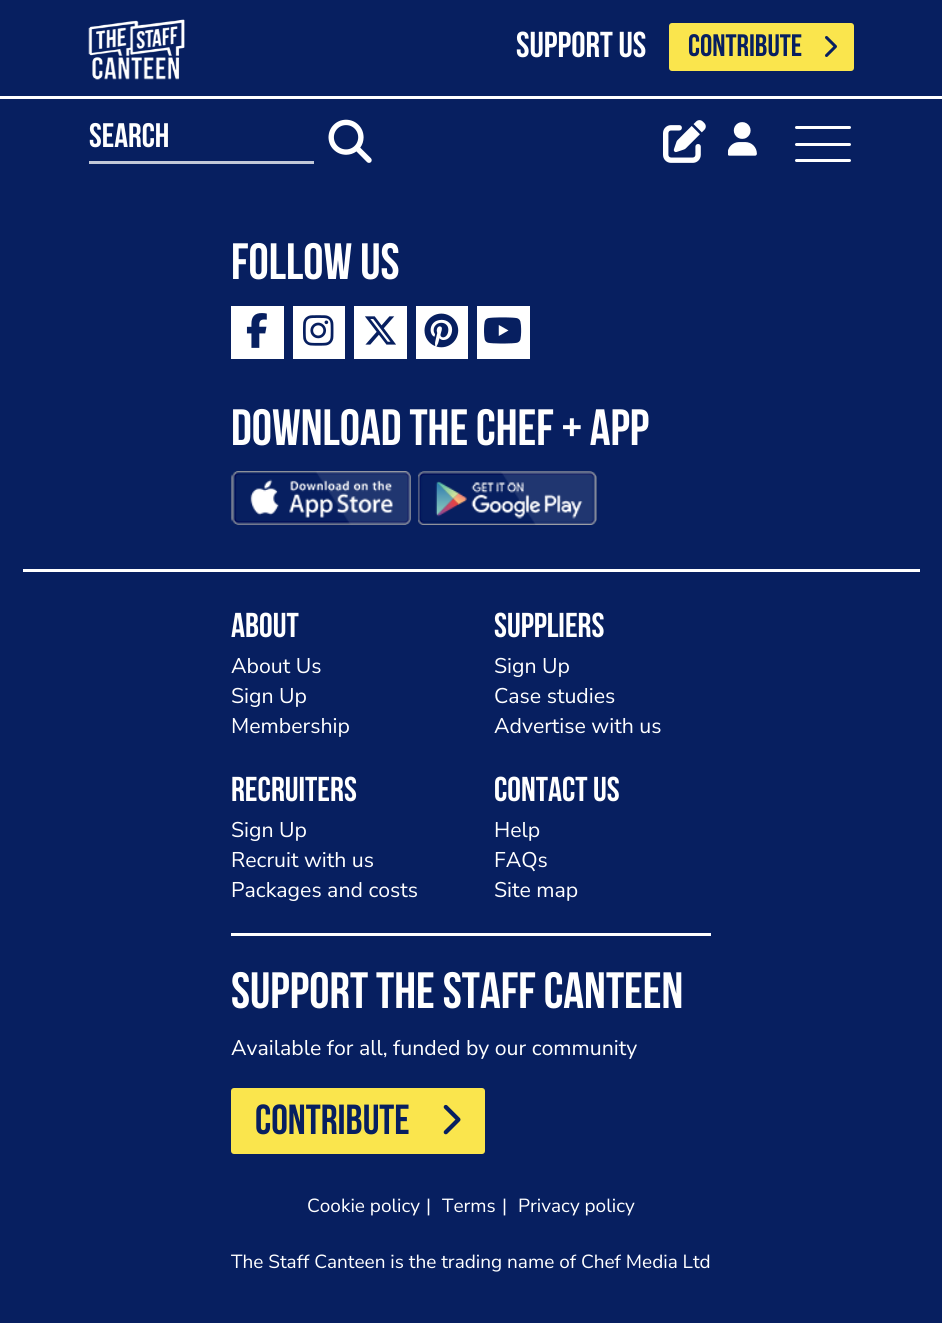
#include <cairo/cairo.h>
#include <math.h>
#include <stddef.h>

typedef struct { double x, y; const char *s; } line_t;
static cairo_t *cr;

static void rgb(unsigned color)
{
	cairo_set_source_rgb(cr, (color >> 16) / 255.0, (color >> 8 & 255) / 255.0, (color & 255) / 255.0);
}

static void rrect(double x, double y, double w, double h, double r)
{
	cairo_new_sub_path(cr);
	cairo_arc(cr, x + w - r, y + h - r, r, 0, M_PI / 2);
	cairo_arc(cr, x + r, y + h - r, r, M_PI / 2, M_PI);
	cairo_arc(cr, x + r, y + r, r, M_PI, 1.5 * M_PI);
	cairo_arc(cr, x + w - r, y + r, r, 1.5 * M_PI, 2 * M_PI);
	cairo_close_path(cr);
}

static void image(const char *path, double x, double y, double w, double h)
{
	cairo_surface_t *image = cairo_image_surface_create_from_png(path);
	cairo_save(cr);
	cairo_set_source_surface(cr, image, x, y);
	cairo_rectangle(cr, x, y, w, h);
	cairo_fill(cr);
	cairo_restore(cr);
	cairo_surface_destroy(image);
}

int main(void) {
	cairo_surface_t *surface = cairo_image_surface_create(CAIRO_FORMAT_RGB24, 942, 1343);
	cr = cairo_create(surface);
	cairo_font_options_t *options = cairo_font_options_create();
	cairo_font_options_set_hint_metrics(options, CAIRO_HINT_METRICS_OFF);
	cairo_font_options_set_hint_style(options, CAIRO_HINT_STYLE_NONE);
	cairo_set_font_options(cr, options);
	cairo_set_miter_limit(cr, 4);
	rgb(0xffffff);
	cairo_paint(cr);
	rgb(0x071f60);
	cairo_rectangle(cr, 0, 0, 942, 1323);
	cairo_fill(cr);
	image("img/1.png", 88, 19, 97, 61);
	rgb(0xfae54d);
	rrect(669, 23, 185, 48, 3);
	cairo_fill(cr);
	image("img/2.png", 825, 36, 12, 21);
	rgb(0xffffff);
	cairo_rectangle(cr, 0, 96, 942, 3);
	cairo_fill(cr);
	rgb(0xc1c7d7);
	cairo_rectangle(cr, 89, 161, 225, 3);
	cairo_fill(cr);
	image("img/3.png", 328, 119, 44, 44);
	image("img/4.png", 663, 120, 43, 43);
	image("img/5.png", 728, 122, 29, 34);
	rgb(0xffffff);
	rrect(795, 126, 56, 3, 1.5);
	cairo_fill(cr);
	rrect(795, 143, 56, 3, 1.5);
	cairo_fill(cr);
	rrect(795, 159, 56, 3, 1.5);
	cairo_fill(cr);
	cairo_rectangle(cr, 231, 306, 53, 53);
	cairo_fill(cr);
	image("img/6.png", 246, 313, 21, 35);
	cairo_rectangle(cr, 293, 306, 52, 53);
	cairo_fill(cr);
	image("img/7.png", 303, 315, 31, 31);
	cairo_rectangle(cr, 354, 306, 53, 53);
	cairo_fill(cr);
	image("img/8.png", 365, 316, 31, 29);
	cairo_rectangle(cr, 416, 306, 52, 53);
	cairo_fill(cr);
	image("img/9.png", 424, 313, 35, 35);
	cairo_rectangle(cr, 477, 306, 53, 53);
	cairo_fill(cr);
	image("img/10.png", 484, 317, 38, 27);
	image("img/11.png", 231, 471, 180, 54);
	image("img/12.png", 418, 471, 179, 54);
	cairo_rectangle(cr, 23, 569, 897, 3);
	cairo_fill(cr);
	cairo_rectangle(cr, 231, 933, 480, 3);
	cairo_fill(cr);
	rgb(0xfae54d);
	rrect(231, 1088, 254, 66, 3);
	cairo_fill(cr);
	image("img/13.png", 443, 1104, 18, 31);
	cairo_select_font_face(cr, "Bebas Neue", CAIRO_FONT_SLANT_NORMAL, CAIRO_FONT_WEIGHT_BOLD);
	cairo_set_font_size(cr, 36);
	rgb(0xffffff);
	cairo_move_to(cr, 516, 57);
	cairo_show_text(cr, "SUPPORT US");
	cairo_set_font_size(cr, 31);
	rgb(0x071f60);
	cairo_move_to(cr, 688, 56);
	cairo_show_text(cr, "CONTRIBUTE");
	cairo_set_font_size(cr, 34);
	rgb(0xffffff);
	cairo_move_to(cr, 89, 147);
	cairo_show_text(cr, "search");
	cairo_set_font_size(cr, 51);
	cairo_move_to(cr, 231, 279);
	cairo_show_text(cr, "Follow Us");
	cairo_move_to(cr, 231, 445);
	cairo_show_text(cr, "Download the Chef + app");
	cairo_set_font_size(cr, 34.5);
	cairo_move_to(cr, 231, 637);
	cairo_show_text(cr, "About");
	cairo_select_font_face(cr, "Nunito Sans ExtraLight", CAIRO_FONT_SLANT_NORMAL, CAIRO_FONT_WEIGHT_NORMAL);
	cairo_set_font_size(cr, 21.3);
	{
		static const line_t items[] = {
			{231, 673, "About Us"},
			{231, 703, "Sign Up"},
			{231, 733, "Membership"},
		};
		for (size_t i = 0; i < sizeof items / sizeof *items; i++) {
			cairo_move_to(cr, items[i].x, items[i].y);
			cairo_show_text(cr, items[i].s);
		}
	}
	cairo_select_font_face(cr, "Bebas Neue", CAIRO_FONT_SLANT_NORMAL, CAIRO_FONT_WEIGHT_BOLD);
	cairo_set_font_size(cr, 34.5);
	cairo_move_to(cr, 494, 637);
	cairo_show_text(cr, "Suppliers");
	cairo_select_font_face(cr, "Nunito Sans ExtraLight", CAIRO_FONT_SLANT_NORMAL, CAIRO_FONT_WEIGHT_NORMAL);
	cairo_set_font_size(cr, 21.3);
	{
		static const line_t items[] = {
			{494, 673, "Sign Up"},
			{494, 703, "Case studies"},
			{494, 733, "Advertise with us"},
		};
		for (size_t i = 0; i < sizeof items / sizeof *items; i++) {
			cairo_move_to(cr, items[i].x, items[i].y);
			cairo_show_text(cr, items[i].s);
		}
	}
	cairo_select_font_face(cr, "Bebas Neue", CAIRO_FONT_SLANT_NORMAL, CAIRO_FONT_WEIGHT_BOLD);
	cairo_set_font_size(cr, 34.5);
	cairo_move_to(cr, 231, 801);
	cairo_show_text(cr, "Recruiters");
	cairo_select_font_face(cr, "Nunito Sans ExtraLight", CAIRO_FONT_SLANT_NORMAL, CAIRO_FONT_WEIGHT_NORMAL);
	cairo_set_font_size(cr, 21.3);
	{
		static const line_t items[] = {
			{231, 837, "Sign Up"},
			{231, 867, "Recruit with us"},
			{231, 897, "Packages and costs"},
		};
		for (size_t i = 0; i < sizeof items / sizeof *items; i++) {
			cairo_move_to(cr, items[i].x, items[i].y);
			cairo_show_text(cr, items[i].s);
		}
	}
	cairo_select_font_face(cr, "Bebas Neue", CAIRO_FONT_SLANT_NORMAL, CAIRO_FONT_WEIGHT_BOLD);
	cairo_set_font_size(cr, 34.5);
	cairo_move_to(cr, 494, 801);
	cairo_show_text(cr, "Contact Us");
	cairo_select_font_face(cr, "Nunito Sans ExtraLight", CAIRO_FONT_SLANT_NORMAL, CAIRO_FONT_WEIGHT_NORMAL);
	cairo_set_font_size(cr, 21.3);
	{
		static const line_t items[] = {
			{494, 837, "Help"},
			{494, 867, "FAQs"},
			{494, 897, "Site map"},
		};
		for (size_t i = 0; i < sizeof items / sizeof *items; i++) {
			cairo_move_to(cr, items[i].x, items[i].y);
			cairo_show_text(cr, items[i].s);
		}
	}
	cairo_select_font_face(cr, "Bebas Neue", CAIRO_FONT_SLANT_NORMAL, CAIRO_FONT_WEIGHT_BOLD);
	cairo_set_font_size(cr, 51);
	cairo_move_to(cr, 231, 1008);
	cairo_show_text(cr, "SUPPORT THE STAFF CANTEEN");
	cairo_select_font_face(cr, "Nunito Sans ExtraLight", CAIRO_FONT_SLANT_NORMAL, CAIRO_FONT_WEIGHT_NORMAL);
	cairo_set_font_size(cr, 21.3);
	cairo_move_to(cr, 231, 1055);
	cairo_show_text(cr, "Available for all, funded by our community");
	cairo_select_font_face(cr, "Bebas Neue", CAIRO_FONT_SLANT_NORMAL, CAIRO_FONT_WEIGHT_BOLD);
	cairo_set_font_size(cr, 42);
	rgb(0x071f60);
	cairo_move_to(cr, 255, 1134);
	cairo_show_text(cr, "CONTRIBUTE");
	cairo_select_font_face(cr, "Nunito Sans ExtraLight", CAIRO_FONT_SLANT_NORMAL, CAIRO_FONT_WEIGHT_NORMAL);
	cairo_set_font_size(cr, 19);
	rgb(0xffffff);
	{
		static const line_t items[] = {
			{307, 1212, "Cookie policy"},
			{426, 1212, "|"},
			{442, 1212, "Terms"},
			{502, 1212, "|"},
			{518, 1212, "Privacy policy"},
			{231, 1268, "The Staff Canteen is the trading name of Chef Media Ltd"},
		};
		for (size_t i = 0; i < sizeof items / sizeof *items; i++) {
			cairo_move_to(cr, items[i].x, items[i].y);
			cairo_show_text(cr, items[i].s);
		}
	}
	cairo_surface_write_to_png(surface, "page.png");
	cairo_font_options_destroy(options);
	cairo_destroy(cr);
	cairo_surface_destroy(surface);
	return 0;
}
